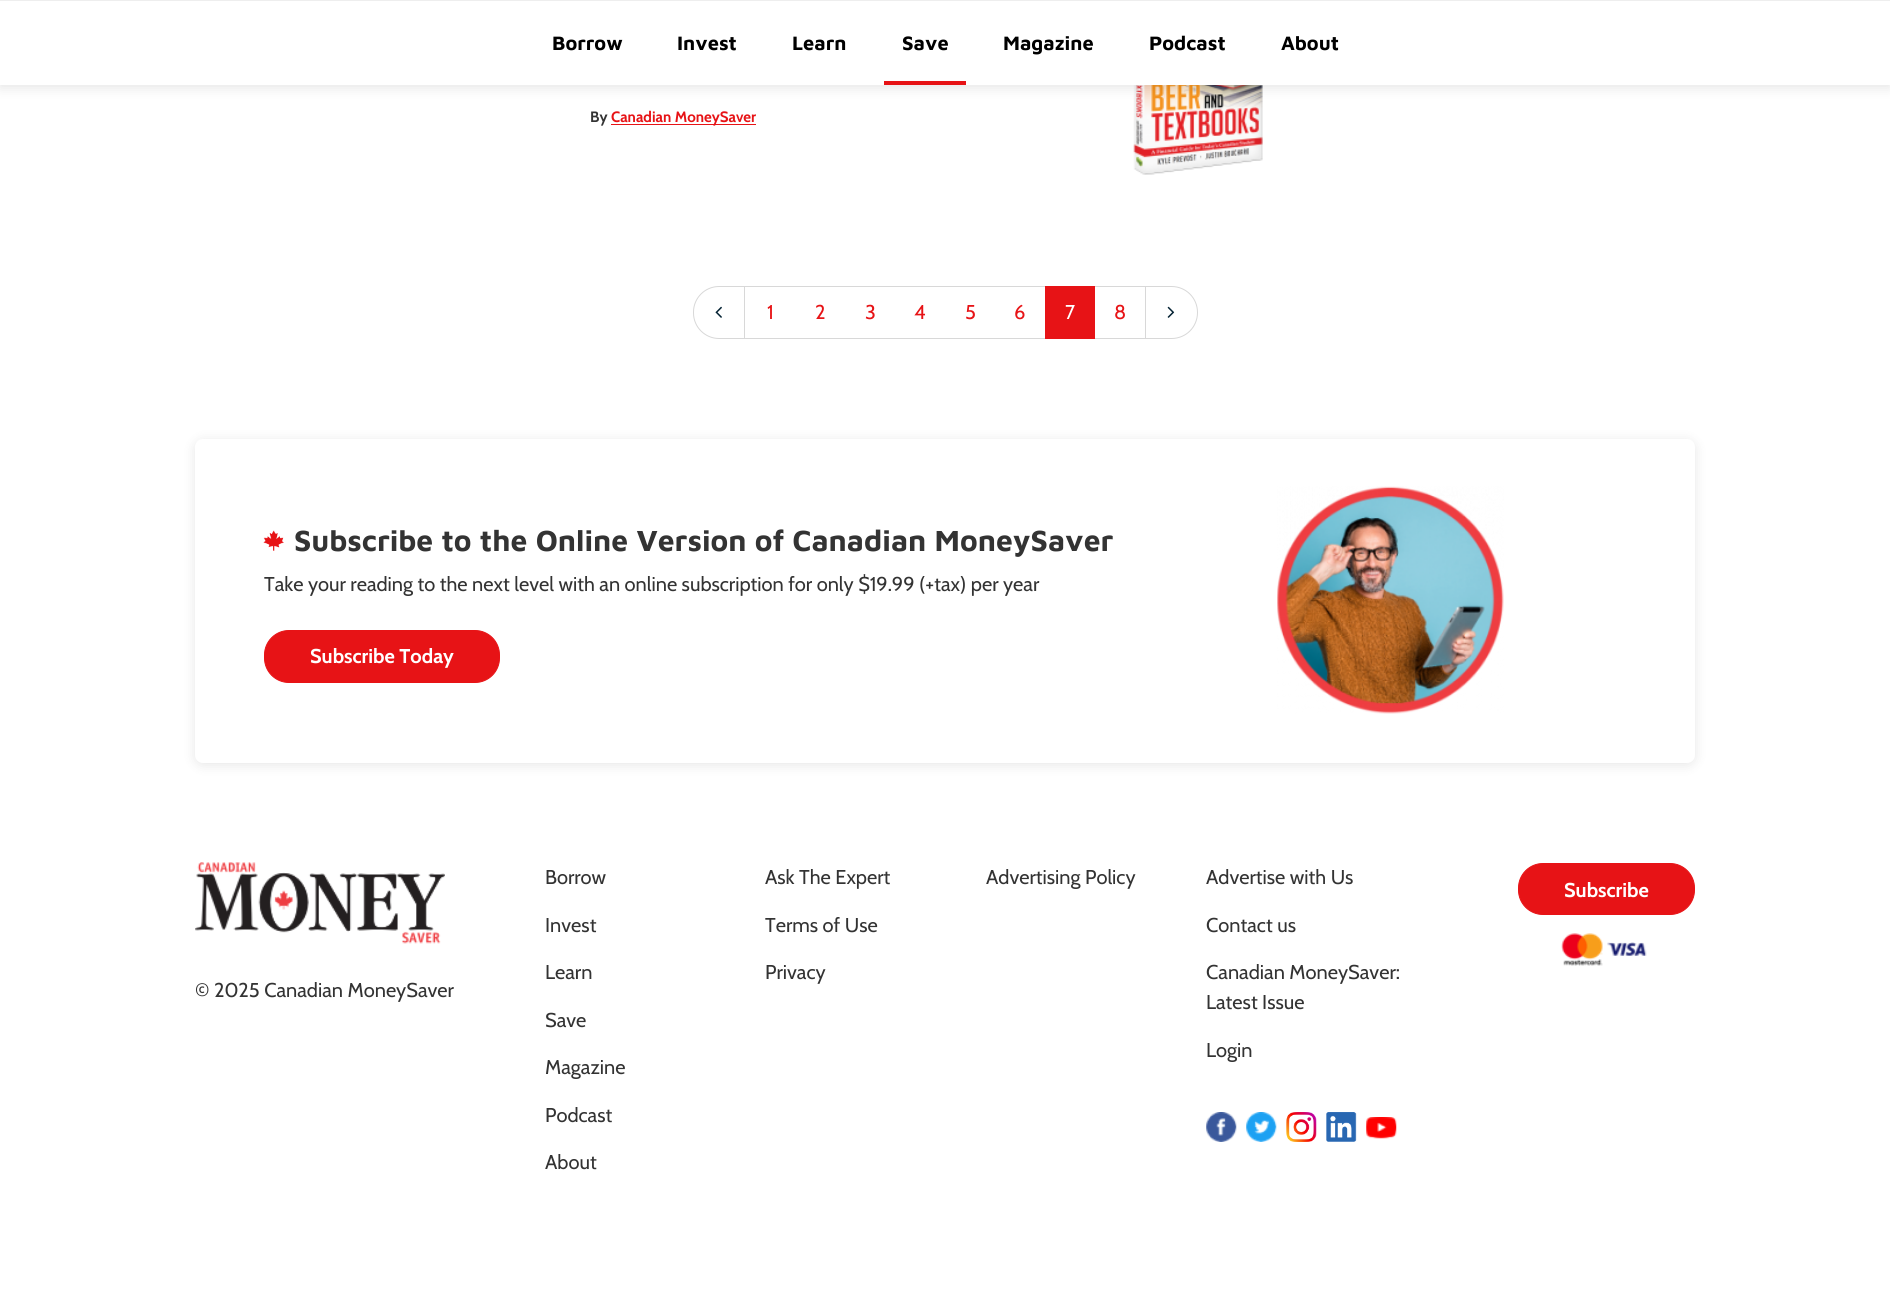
#include <cairo/cairo.h>
#include <math.h>
#include <stddef.h>

typedef struct { double x, y; const char *s; } line_t;
typedef struct { double x, y, w, h; unsigned color; } box_t;
static cairo_t *cr;

static void rgb(unsigned color)
{
	cairo_set_source_rgb(cr, (color >> 16) / 255.0, (color >> 8 & 255) / 255.0, (color & 255) / 255.0);
}

static void rrect(double x, double y, double w, double h, double r)
{
	cairo_new_sub_path(cr);
	cairo_arc(cr, x + w - r, y + h - r, r, 0, M_PI / 2);
	cairo_arc(cr, x + r, y + h - r, r, M_PI / 2, M_PI);
	cairo_arc(cr, x + r, y + r, r, M_PI, 1.5 * M_PI);
	cairo_arc(cr, x + w - r, y + r, r, 1.5 * M_PI, 2 * M_PI);
	cairo_close_path(cr);
}

static void soft_shadow(double x, double y, double w, double h, double r, double blur, double alpha)
{
	cairo_push_group_with_content(cr, CAIRO_CONTENT_ALPHA);
	cairo_set_operator(cr, CAIRO_OPERATOR_SOURCE);
	for (int i = 15; i >= -15 && fmin(w, h) + blur * i / 3 > 0; i -= 2) {
		double e = blur * i / 6;
		cairo_set_source_rgba(cr, 0, 0, 0, alpha * erfc((i - 1) / 8.5) / 2);
		rrect(x - e, y - e, w + 2 * e, h + 2 * e, fmax(0, fmin(r + e + blur * .6, fmin(w, h) / 2 + e)));
		cairo_fill(cr);
	}
	cairo_pattern_t *soft = cairo_pop_group(cr);
	cairo_mask(cr, soft);
	cairo_pattern_destroy(soft);
}

static void image(const char *path, double x, double y, double w, double h)
{
	cairo_surface_t *image = cairo_image_surface_create_from_png(path);
	cairo_save(cr);
	cairo_set_source_surface(cr, image, x, y);
	cairo_rectangle(cr, x, y, w, h);
	cairo_fill(cr);
	cairo_restore(cr);
	cairo_surface_destroy(image);
}

int main(void) {
	cairo_surface_t *surface = cairo_image_surface_create(CAIRO_FORMAT_RGB24, 1890, 1294);
	cr = cairo_create(surface);
	cairo_font_options_t *options = cairo_font_options_create();
	cairo_font_options_set_hint_metrics(options, CAIRO_HINT_METRICS_OFF);
	cairo_font_options_set_hint_style(options, CAIRO_HINT_STYLE_NONE);
	cairo_set_font_options(cr, options);
	cairo_set_miter_limit(cr, 4);
	rgb(0xffffff);
	cairo_paint(cr);
	image("img/1.png", 1133, 85, 130, 90);
	rgb(0x000000);
	soft_shadow(0, 3, 1890, 85, 0, 6, 0.1);
	{
		static const box_t items[] = {
			{0, 1, 1890, 84, 0xffffff},
			{0, 0, 1890, 1, 0xeeeeee},
			{884, 81, 82, 4, 0xe71316},
			{611, 124, 145, 1, 0xe71316},
		};
		for (size_t i = 0; i < sizeof items / sizeof *items; i++) {
			rgb(items[i].color);
			cairo_rectangle(cr, items[i].x, items[i].y, items[i].w, items[i].h);
			cairo_fill(cr);
		}
	}
	cairo_new_path(cr);
	cairo_move_to(cr, 719, 286.5);
	cairo_line_to(cr, 744.5, 286.5);
	cairo_line_to(cr, 744.5, 338.5);
	cairo_line_to(cr, 719, 338.5);
	cairo_curve_to(cr, 705, 338.5, 693.5, 327, 693.5, 313);
	cairo_line_to(cr, 693.5, 312);
	cairo_curve_to(cr, 693.5, 298, 705, 286.5, 719, 286.5);
	cairo_close_path(cr);
	rgb(0xd8d8d8);
	cairo_set_line_width(cr, 1);
	cairo_stroke(cr);
	image("img/2.png", 715, 306, 7, 12);
	{
		static const box_t items[] = {
			{745, 286, 300, 1, 0xd8d8d8},
			{745, 338, 300, 1, 0xd8d8d8},
			{1045, 286, 50, 53, 0xe71316},
			{1095, 286, 50, 1, 0xd8d8d8},
			{1095, 338, 50, 1, 0xd8d8d8},
		};
		for (size_t i = 0; i < sizeof items / sizeof *items; i++) {
			rgb(items[i].color);
			cairo_rectangle(cr, items[i].x, items[i].y, items[i].w, items[i].h);
			cairo_fill(cr);
		}
	}
	cairo_new_path(cr);
	cairo_move_to(cr, 1145.5, 286.5);
	cairo_line_to(cr, 1171.5, 286.5);
	cairo_curve_to(cr, 1186, 286.5, 1197.5, 298, 1197.5, 312.5);
	cairo_curve_to(cr, 1197.5, 327, 1186, 338.5, 1171.5, 338.5);
	cairo_line_to(cr, 1145.5, 338.5);
	cairo_close_path(cr);
	cairo_stroke(cr);
	image("img/3.png", 1167, 306, 8, 12);
	rgb(0x000000);
	soft_shadow(195, 441, 1500, 324, 8, 6, 0.1);
	rgb(0xffffff);
	rrect(195, 439, 1500, 324, 8);
	cairo_fill(cr);
	image("img/4.png", 263, 530, 21, 21);
	rgb(0xe71316);
	rrect(264.5, 630.5, 235, 52, 24.5);
	cairo_fill_preserve(cr);
	cairo_stroke(cr);
	image("img/5.png", 1277, 486, 227, 228);
	image("img/6.png", 1206, 1112, 31, 30);
	image("img/7.png", 1246, 1112, 31, 30);
	image("img/8.png", 1286, 1112, 31, 30);
	image("img/9.png", 1326, 1112, 31, 30);
	image("img/10.png", 1366, 1117, 31, 22);
	rrect(1518.5, 863.5, 176, 51, 24.5);
	cairo_fill_preserve(cr);
	cairo_stroke(cr);
	image("img/11.png", 1561, 933, 42, 33);
	image("img/12.png", 1607, 942, 40, 14);
	image("img/13.png", 195, 862, 250, 82);
	cairo_select_font_face(cr, "Maven Pro", CAIRO_FONT_SLANT_NORMAL, CAIRO_FONT_WEIGHT_BOLD);
	cairo_set_font_size(cr, 20);
	rgb(0x000000);
	{
		static const line_t items[] = {
			{552, 50, "Borrow"},
			{677, 50, "Invest"},
			{792, 50, "Learn"},
			{902, 50, "Save"},
			{1003, 50, "Magazine"},
			{1149, 50, "Podcast"},
			{1281, 50, "About"},
		};
		for (size_t i = 0; i < sizeof items / sizeof *items; i++) {
			cairo_move_to(cr, items[i].x, items[i].y);
			cairo_show_text(cr, items[i].s);
		}
	}
	cairo_select_font_face(cr, "Cabin", CAIRO_FONT_SLANT_NORMAL, CAIRO_FONT_WEIGHT_BOLD);
	cairo_set_font_size(cr, 15);
	rgb(0x333333);
	cairo_move_to(cr, 590, 122);
	cairo_show_text(cr, "By");
	rgb(0xe71316);
	cairo_move_to(cr, 611, 122);
	cairo_show_text(cr, "Canadian MoneySaver");
	cairo_select_font_face(cr, "Cabin", CAIRO_FONT_SLANT_NORMAL, CAIRO_FONT_WEIGHT_NORMAL);
	cairo_set_font_size(cr, 20);
	{
		static const line_t items[] = {
			{767, 319, "1"},
			{815, 319, "2"},
			{865, 319, "3"},
			{914, 319, "4"},
			{965, 319, "5"},
			{1014, 319, "6"},
		};
		for (size_t i = 0; i < sizeof items / sizeof *items; i++) {
			cairo_move_to(cr, items[i].x, items[i].y);
			cairo_show_text(cr, items[i].s);
		}
	}
	rgb(0xffffff);
	cairo_move_to(cr, 1065, 319);
	cairo_show_text(cr, "7");
	rgb(0xe71316);
	cairo_move_to(cr, 1114, 319);
	cairo_show_text(cr, "8");
	cairo_select_font_face(cr, "Maven Pro", CAIRO_FONT_SLANT_NORMAL, CAIRO_FONT_WEIGHT_BOLD);
	cairo_set_font_size(cr, 30);
	rgb(0x333333);
	cairo_move_to(cr, 294, 551);
	cairo_show_text(cr, "Subscribe to the Online Version of Canadian MoneySaver");
	cairo_select_font_face(cr, "Cabin", CAIRO_FONT_SLANT_NORMAL, CAIRO_FONT_WEIGHT_NORMAL);
	cairo_set_font_size(cr, 20);
	cairo_move_to(cr, 264, 591);
	cairo_show_text(cr, "Take your reading to the next level with an online subscription for only $19.99 (+tax) per year");
	cairo_select_font_face(cr, "Cabin", CAIRO_FONT_SLANT_NORMAL, CAIRO_FONT_WEIGHT_BOLD);
	rgb(0xffffff);
	cairo_move_to(cr, 310, 663);
	cairo_show_text(cr, "Subscribe Today");
	cairo_select_font_face(cr, "Cabin", CAIRO_FONT_SLANT_NORMAL, CAIRO_FONT_WEIGHT_NORMAL);
	rgb(0x333333);
	{
		static const line_t items[] = {
			{545, 884, "Borrow"},
			{545, 932, "Invest"},
			{545, 979, "Learn"},
			{545, 1027, "Save"},
			{545, 1074, "Magazine"},
			{545, 1122, "Podcast"},
			{545, 1169, "About"},
			{765, 884, "Ask The Expert"},
			{765, 932, "Terms of Use"},
			{765, 979, "Privacy"},
			{986, 884, "Advertising Policy"},
			{1206, 884, "Advertise with Us"},
			{1206, 932, "Contact us"},
			{1206, 979, "Canadian MoneySaver:"},
			{1206, 1009, "Latest Issue"},
			{1206, 1057, "Login"},
		};
		for (size_t i = 0; i < sizeof items / sizeof *items; i++) {
			cairo_move_to(cr, items[i].x, items[i].y);
			cairo_show_text(cr, items[i].s);
		}
	}
	cairo_select_font_face(cr, "Cabin", CAIRO_FONT_SLANT_NORMAL, CAIRO_FONT_WEIGHT_BOLD);
	rgb(0xffffff);
	cairo_move_to(cr, 1564, 897);
	cairo_show_text(cr, "Subscribe");
	cairo_select_font_face(cr, "Cabin", CAIRO_FONT_SLANT_NORMAL, CAIRO_FONT_WEIGHT_NORMAL);
	rgb(0x333333);
	cairo_move_to(cr, 195, 997);
	cairo_show_text(cr, "© 2025 Canadian MoneySaver");
	cairo_surface_write_to_png(surface, "page.png");
	cairo_font_options_destroy(options);
	cairo_destroy(cr);
	cairo_surface_destroy(surface);
	return 0;
}
